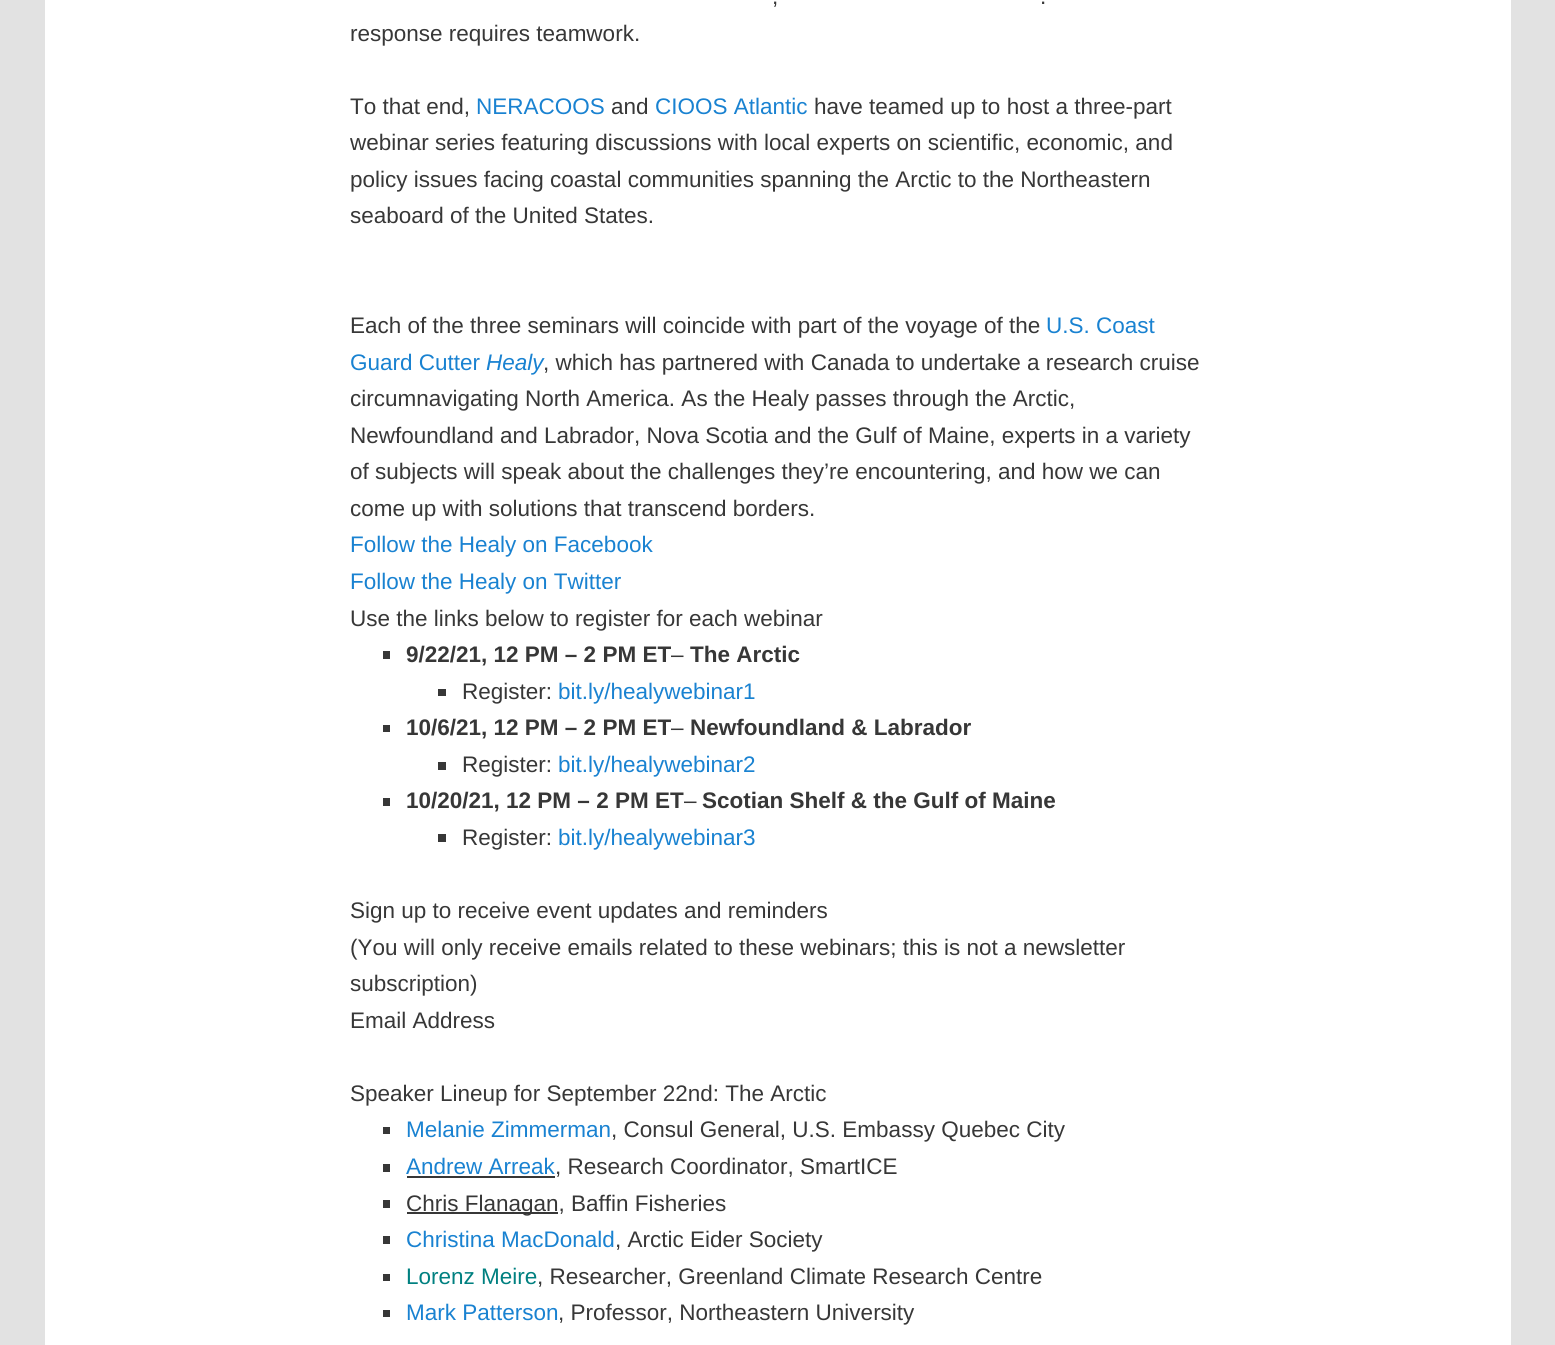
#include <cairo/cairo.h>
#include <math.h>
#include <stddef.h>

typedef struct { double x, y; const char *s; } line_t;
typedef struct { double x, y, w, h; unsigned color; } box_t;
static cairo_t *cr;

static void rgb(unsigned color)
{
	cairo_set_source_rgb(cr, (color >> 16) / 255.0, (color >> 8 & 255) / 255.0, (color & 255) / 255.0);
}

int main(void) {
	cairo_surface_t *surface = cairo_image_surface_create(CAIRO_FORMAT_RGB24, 1555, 1345);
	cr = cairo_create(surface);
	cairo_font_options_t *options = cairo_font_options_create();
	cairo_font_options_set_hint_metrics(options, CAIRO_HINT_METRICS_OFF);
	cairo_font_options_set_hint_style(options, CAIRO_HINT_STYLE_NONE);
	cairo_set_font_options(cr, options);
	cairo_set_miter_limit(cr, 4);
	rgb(0xe2e2e2);
	cairo_paint(cr);
	{
		static const box_t items[] = {
			{45, 0, 1466, 1345, 0xffffff},
			{383, 651, 7, 8, 0x373737},
			{438, 689, 8, 7, 0x373737},
			{383, 725, 7, 7, 0x373737},
			{438, 762, 8, 8, 0x373737},
			{383, 798, 7, 8, 0x373737},
			{438, 834, 8, 8, 0x373737},
			{383, 1127, 7, 7, 0x373737},
			{383, 1164, 7, 8, 0x373737},
			{407, 1176, 148, 2, 0x373737},
			{383, 1200, 7, 8, 0x373737},
			{407, 1212, 151, 2, 0x373737},
			{383, 1236, 7, 8, 0x373737},
			{383, 1274, 7, 7, 0x373737},
			{383, 1310, 7, 7, 0x373737},
		};
		for (size_t i = 0; i < sizeof items / sizeof *items; i++) {
			rgb(items[i].color);
			cairo_rectangle(cr, items[i].x, items[i].y, items[i].w, items[i].h);
			cairo_fill(cr);
		}
	}
	cairo_select_font_face(cr, "Liberation Sans", CAIRO_FONT_SLANT_NORMAL, CAIRO_FONT_WEIGHT_NORMAL);
	cairo_set_font_size(cr, 22.5);
	{
		static const line_t items[] = {
			{772, 4, ","},
			{1040, 4, "."},
			{350, 41, "response requires teamwork."},
			{350, 114, "To that end,"},
		};
		for (size_t i = 0; i < sizeof items / sizeof *items; i++) {
			cairo_move_to(cr, items[i].x, items[i].y);
			cairo_show_text(cr, items[i].s);
		}
	}
	rgb(0x1982d1);
	cairo_move_to(cr, 476, 114);
	cairo_show_text(cr, "NERACOOS");
	rgb(0x373737);
	cairo_move_to(cr, 611, 114);
	cairo_show_text(cr, "and");
	rgb(0x1982d1);
	cairo_move_to(cr, 655, 114);
	cairo_show_text(cr, "CIOOS Atlantic");
	rgb(0x373737);
	{
		static const line_t items[] = {
			{814, 114, "have teamed up to host a three-part"},
			{350, 150, "webinar series featuring discussions with local experts on scientific, economic, and"},
			{350, 187, "policy issues facing coastal communities spanning the Arctic to the Northeastern"},
			{350, 223, "seaboard of the United States."},
			{350, 333, "Each of the three seminars will coincide with part of the voyage of the"},
		};
		for (size_t i = 0; i < sizeof items / sizeof *items; i++) {
			cairo_move_to(cr, items[i].x, items[i].y);
			cairo_show_text(cr, items[i].s);
		}
	}
	rgb(0x1982d1);
	cairo_move_to(cr, 1046, 333);
	cairo_show_text(cr, "U.S. Coast");
	cairo_move_to(cr, 350, 370);
	cairo_show_text(cr, "Guard Cutter");
	cairo_select_font_face(cr, "Liberation Sans", CAIRO_FONT_SLANT_ITALIC, CAIRO_FONT_WEIGHT_NORMAL);
	cairo_move_to(cr, 486, 370);
	cairo_show_text(cr, "Healy");
	cairo_select_font_face(cr, "Liberation Sans", CAIRO_FONT_SLANT_NORMAL, CAIRO_FONT_WEIGHT_NORMAL);
	rgb(0x373737);
	{
		static const line_t items[] = {
			{543, 370, ", which has partnered with Canada to undertake a research cruise"},
			{350, 406, "circumnavigating North America. As the Healy passes through the Arctic,"},
			{350, 443, "Newfoundland and Labrador, Nova Scotia and the Gulf of Maine, experts in a variety"},
			{350, 479, "of subjects will speak about the challenges they’re encountering, and how we can"},
			{350, 516, "come up with solutions that transcend borders."},
		};
		for (size_t i = 0; i < sizeof items / sizeof *items; i++) {
			cairo_move_to(cr, items[i].x, items[i].y);
			cairo_show_text(cr, items[i].s);
		}
	}
	rgb(0x1982d1);
	cairo_move_to(cr, 350, 552);
	cairo_show_text(cr, "Follow the Healy on Facebook");
	cairo_move_to(cr, 350, 589);
	cairo_show_text(cr, "Follow the Healy on Twitter");
	rgb(0x373737);
	cairo_move_to(cr, 350, 626);
	cairo_show_text(cr, "Use the links below to register for each webinar");
	cairo_select_font_face(cr, "Liberation Sans", CAIRO_FONT_SLANT_NORMAL, CAIRO_FONT_WEIGHT_BOLD);
	cairo_move_to(cr, 406, 662);
	cairo_show_text(cr, "9/22/21, 12 PM – 2 PM ET");
	cairo_select_font_face(cr, "Liberation Sans", CAIRO_FONT_SLANT_NORMAL, CAIRO_FONT_WEIGHT_NORMAL);
	cairo_move_to(cr, 671, 662);
	cairo_show_text(cr, "–");
	cairo_select_font_face(cr, "Liberation Sans", CAIRO_FONT_SLANT_NORMAL, CAIRO_FONT_WEIGHT_BOLD);
	cairo_move_to(cr, 690, 662);
	cairo_show_text(cr, "The Arctic");
	cairo_select_font_face(cr, "Liberation Sans", CAIRO_FONT_SLANT_NORMAL, CAIRO_FONT_WEIGHT_NORMAL);
	cairo_move_to(cr, 462, 699);
	cairo_show_text(cr, "Register:");
	rgb(0x1982d1);
	cairo_move_to(cr, 558, 699);
	cairo_show_text(cr, "bit.ly/healywebinar1");
	cairo_select_font_face(cr, "Liberation Sans", CAIRO_FONT_SLANT_NORMAL, CAIRO_FONT_WEIGHT_BOLD);
	rgb(0x373737);
	cairo_move_to(cr, 406, 735);
	cairo_show_text(cr, "10/6/21, 12 PM – 2 PM ET");
	cairo_select_font_face(cr, "Liberation Sans", CAIRO_FONT_SLANT_NORMAL, CAIRO_FONT_WEIGHT_NORMAL);
	cairo_move_to(cr, 671, 735);
	cairo_show_text(cr, "–");
	cairo_select_font_face(cr, "Liberation Sans", CAIRO_FONT_SLANT_NORMAL, CAIRO_FONT_WEIGHT_BOLD);
	cairo_move_to(cr, 690, 735);
	cairo_show_text(cr, "Newfoundland & Labrador");
	cairo_select_font_face(cr, "Liberation Sans", CAIRO_FONT_SLANT_NORMAL, CAIRO_FONT_WEIGHT_NORMAL);
	cairo_move_to(cr, 462, 772);
	cairo_show_text(cr, "Register:");
	rgb(0x1982d1);
	cairo_move_to(cr, 558, 772);
	cairo_show_text(cr, "bit.ly/healywebinar2");
	cairo_select_font_face(cr, "Liberation Sans", CAIRO_FONT_SLANT_NORMAL, CAIRO_FONT_WEIGHT_BOLD);
	rgb(0x373737);
	cairo_move_to(cr, 406, 808);
	cairo_show_text(cr, "10/20/21, 12 PM – 2 PM ET");
	cairo_select_font_face(cr, "Liberation Sans", CAIRO_FONT_SLANT_NORMAL, CAIRO_FONT_WEIGHT_NORMAL);
	cairo_move_to(cr, 684, 808);
	cairo_show_text(cr, "–");
	cairo_select_font_face(cr, "Liberation Sans", CAIRO_FONT_SLANT_NORMAL, CAIRO_FONT_WEIGHT_BOLD);
	cairo_move_to(cr, 702, 808);
	cairo_show_text(cr, "Scotian Shelf & the Gulf of Maine");
	cairo_select_font_face(cr, "Liberation Sans", CAIRO_FONT_SLANT_NORMAL, CAIRO_FONT_WEIGHT_NORMAL);
	cairo_move_to(cr, 462, 845);
	cairo_show_text(cr, "Register:");
	rgb(0x1982d1);
	cairo_move_to(cr, 558, 845);
	cairo_show_text(cr, "bit.ly/healywebinar3");
	rgb(0x373737);
	{
		static const line_t items[] = {
			{350, 918, "Sign up to receive event updates and reminders"},
			{350, 955, "(You will only receive emails related to these webinars; this is not a newsletter"},
			{350, 991, "subscription)"},
			{350, 1028, "Email Address"},
			{350, 1101, "Speaker Lineup for September 22nd: The Arctic"},
		};
		for (size_t i = 0; i < sizeof items / sizeof *items; i++) {
			cairo_move_to(cr, items[i].x, items[i].y);
			cairo_show_text(cr, items[i].s);
		}
	}
	rgb(0x1982d1);
	cairo_move_to(cr, 406, 1137);
	cairo_show_text(cr, "Melanie Zimmerman");
	rgb(0x373737);
	cairo_move_to(cr, 611, 1137);
	cairo_show_text(cr, ", Consul General, U.S. Embassy Quebec City");
	rgb(0x1982d1);
	cairo_move_to(cr, 406, 1174);
	cairo_show_text(cr, "Andrew Arreak");
	rgb(0x373737);
	cairo_move_to(cr, 555, 1174);
	cairo_show_text(cr, ", Research Coordinator, SmartICE");
	cairo_move_to(cr, 406, 1211);
	cairo_show_text(cr, "Chris Flanagan, Baffin Fisheries");
	rgb(0x1982d1);
	cairo_move_to(cr, 406, 1247);
	cairo_show_text(cr, "Christina MacDonald");
	rgb(0x373737);
	cairo_move_to(cr, 615, 1247);
	cairo_show_text(cr, ", Arctic Eider Society");
	rgb(0x008080);
	cairo_move_to(cr, 406, 1284);
	cairo_show_text(cr, "Lorenz Meire");
	rgb(0x373737);
	cairo_move_to(cr, 537, 1284);
	cairo_show_text(cr, ", Researcher, Greenland Climate Research Centre");
	rgb(0x1982d1);
	cairo_move_to(cr, 406, 1320);
	cairo_show_text(cr, "Mark Patterson");
	rgb(0x373737);
	cairo_move_to(cr, 558, 1320);
	cairo_show_text(cr, ", Professor, Northeastern University");
	cairo_surface_write_to_png(surface, "page.png");
	cairo_font_options_destroy(options);
	cairo_destroy(cr);
	cairo_surface_destroy(surface);
	return 0;
}
